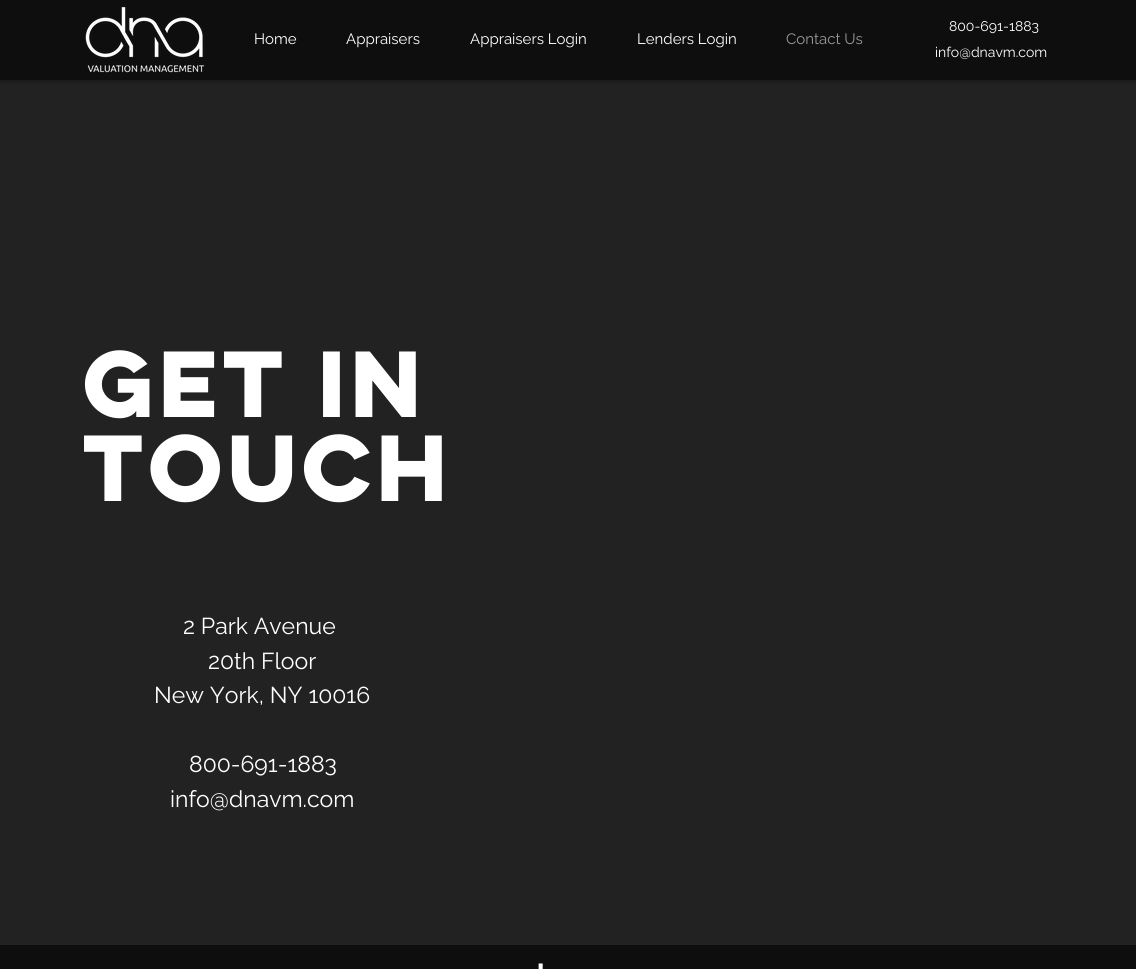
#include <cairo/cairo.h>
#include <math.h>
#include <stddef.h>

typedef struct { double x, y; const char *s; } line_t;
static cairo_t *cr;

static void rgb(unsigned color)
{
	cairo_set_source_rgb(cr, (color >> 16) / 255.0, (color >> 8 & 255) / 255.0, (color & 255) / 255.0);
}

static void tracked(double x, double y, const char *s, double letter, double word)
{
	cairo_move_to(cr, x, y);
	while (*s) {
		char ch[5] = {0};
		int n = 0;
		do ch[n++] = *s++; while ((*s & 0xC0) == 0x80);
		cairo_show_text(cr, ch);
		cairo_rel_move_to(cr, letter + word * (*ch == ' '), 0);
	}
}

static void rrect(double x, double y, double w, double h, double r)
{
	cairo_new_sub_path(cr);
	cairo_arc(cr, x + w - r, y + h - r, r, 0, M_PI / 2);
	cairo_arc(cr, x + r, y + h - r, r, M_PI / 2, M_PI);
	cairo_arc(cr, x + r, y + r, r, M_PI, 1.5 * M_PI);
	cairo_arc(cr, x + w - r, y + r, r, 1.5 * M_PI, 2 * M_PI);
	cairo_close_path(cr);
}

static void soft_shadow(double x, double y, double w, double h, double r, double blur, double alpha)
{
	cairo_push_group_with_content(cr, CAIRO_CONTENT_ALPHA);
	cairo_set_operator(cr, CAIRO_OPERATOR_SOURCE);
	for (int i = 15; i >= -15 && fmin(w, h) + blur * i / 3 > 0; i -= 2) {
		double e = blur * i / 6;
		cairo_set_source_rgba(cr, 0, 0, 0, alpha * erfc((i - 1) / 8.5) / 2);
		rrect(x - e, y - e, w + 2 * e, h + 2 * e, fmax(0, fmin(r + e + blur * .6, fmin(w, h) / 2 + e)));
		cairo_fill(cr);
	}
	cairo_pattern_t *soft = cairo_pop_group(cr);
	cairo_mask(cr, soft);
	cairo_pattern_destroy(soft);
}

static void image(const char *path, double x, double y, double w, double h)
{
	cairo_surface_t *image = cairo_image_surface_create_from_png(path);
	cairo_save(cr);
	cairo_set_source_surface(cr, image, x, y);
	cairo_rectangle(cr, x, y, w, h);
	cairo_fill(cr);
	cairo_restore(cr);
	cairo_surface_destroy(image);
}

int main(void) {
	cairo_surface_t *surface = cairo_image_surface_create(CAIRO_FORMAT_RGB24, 1136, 969);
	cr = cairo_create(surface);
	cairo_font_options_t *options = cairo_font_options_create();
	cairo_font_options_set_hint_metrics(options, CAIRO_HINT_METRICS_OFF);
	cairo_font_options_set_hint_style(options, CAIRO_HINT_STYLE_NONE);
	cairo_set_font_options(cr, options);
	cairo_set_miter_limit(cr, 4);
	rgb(0x222222);
	cairo_paint(cr);
	rgb(0x000000);
	soft_shadow(0, 0, 1136, 80, 0, 2.5, 0.5);
	rgb(0x0e0e0e);
	cairo_rectangle(cr, 0, 0, 1136, 80);
	cairo_fill(cr);
	image("img/1.png", 85, 6, 120, 67);
	cairo_rectangle(cr, 0, 945, 1136, 24);
	cairo_fill(cr);
	image("img/2.png", 538, 963, 5, 6);
	cairo_select_font_face(cr, "Raleway", CAIRO_FONT_SLANT_NORMAL, CAIRO_FONT_WEIGHT_NORMAL);
	cairo_set_font_size(cr, 14);
	rgb(0xffffff);
	cairo_move_to(cr, 949, 31);
	cairo_show_text(cr, "800-691-1883");
	cairo_set_font_size(cr, 15);
	{
		static const line_t items[] = {
			{254, 44, "Home"},
			{346, 44, "Appraisers"},
			{470, 44, "Appraisers Login"},
			{637, 44, "Lenders Login"},
		};
		for (size_t i = 0; i < sizeof items / sizeof *items; i++) {
			cairo_move_to(cr, items[i].x, items[i].y);
			cairo_show_text(cr, items[i].s);
		}
	}
	rgb(0x999999);
	cairo_move_to(cr, 786, 44);
	cairo_show_text(cr, "Contact Us");
	cairo_set_font_size(cr, 14);
	rgb(0xffffff);
	cairo_move_to(cr, 935, 57);
	cairo_show_text(cr, "info@dnavm.com");
	cairo_select_font_face(cr, "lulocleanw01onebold", CAIRO_FONT_SLANT_NORMAL, CAIRO_FONT_WEIGHT_BOLD);
	cairo_set_font_size(cr, 84);
	tracked(83, 417, "get in", -13.5, 0);
	tracked(83, 501, "touch", -13.5, 0);
	cairo_select_font_face(cr, "Raleway", CAIRO_FONT_SLANT_NORMAL, CAIRO_FONT_WEIGHT_NORMAL);
	cairo_set_font_size(cr, 23);
	{
		static const line_t items[] = {
			{183, 634, "2 Park Avenue"},
			{208, 669, "20th Floor"},
			{154, 703, "New York, NY 10016"},
			{189, 772, "800-691-1883"},
			{170, 807, "info@dnavm.com"},
		};
		for (size_t i = 0; i < sizeof items / sizeof *items; i++) {
			cairo_move_to(cr, items[i].x, items[i].y);
			cairo_show_text(cr, items[i].s);
		}
	}
	cairo_surface_write_to_png(surface, "page.png");
	cairo_font_options_destroy(options);
	cairo_destroy(cr);
	cairo_surface_destroy(surface);
	return 0;
}
